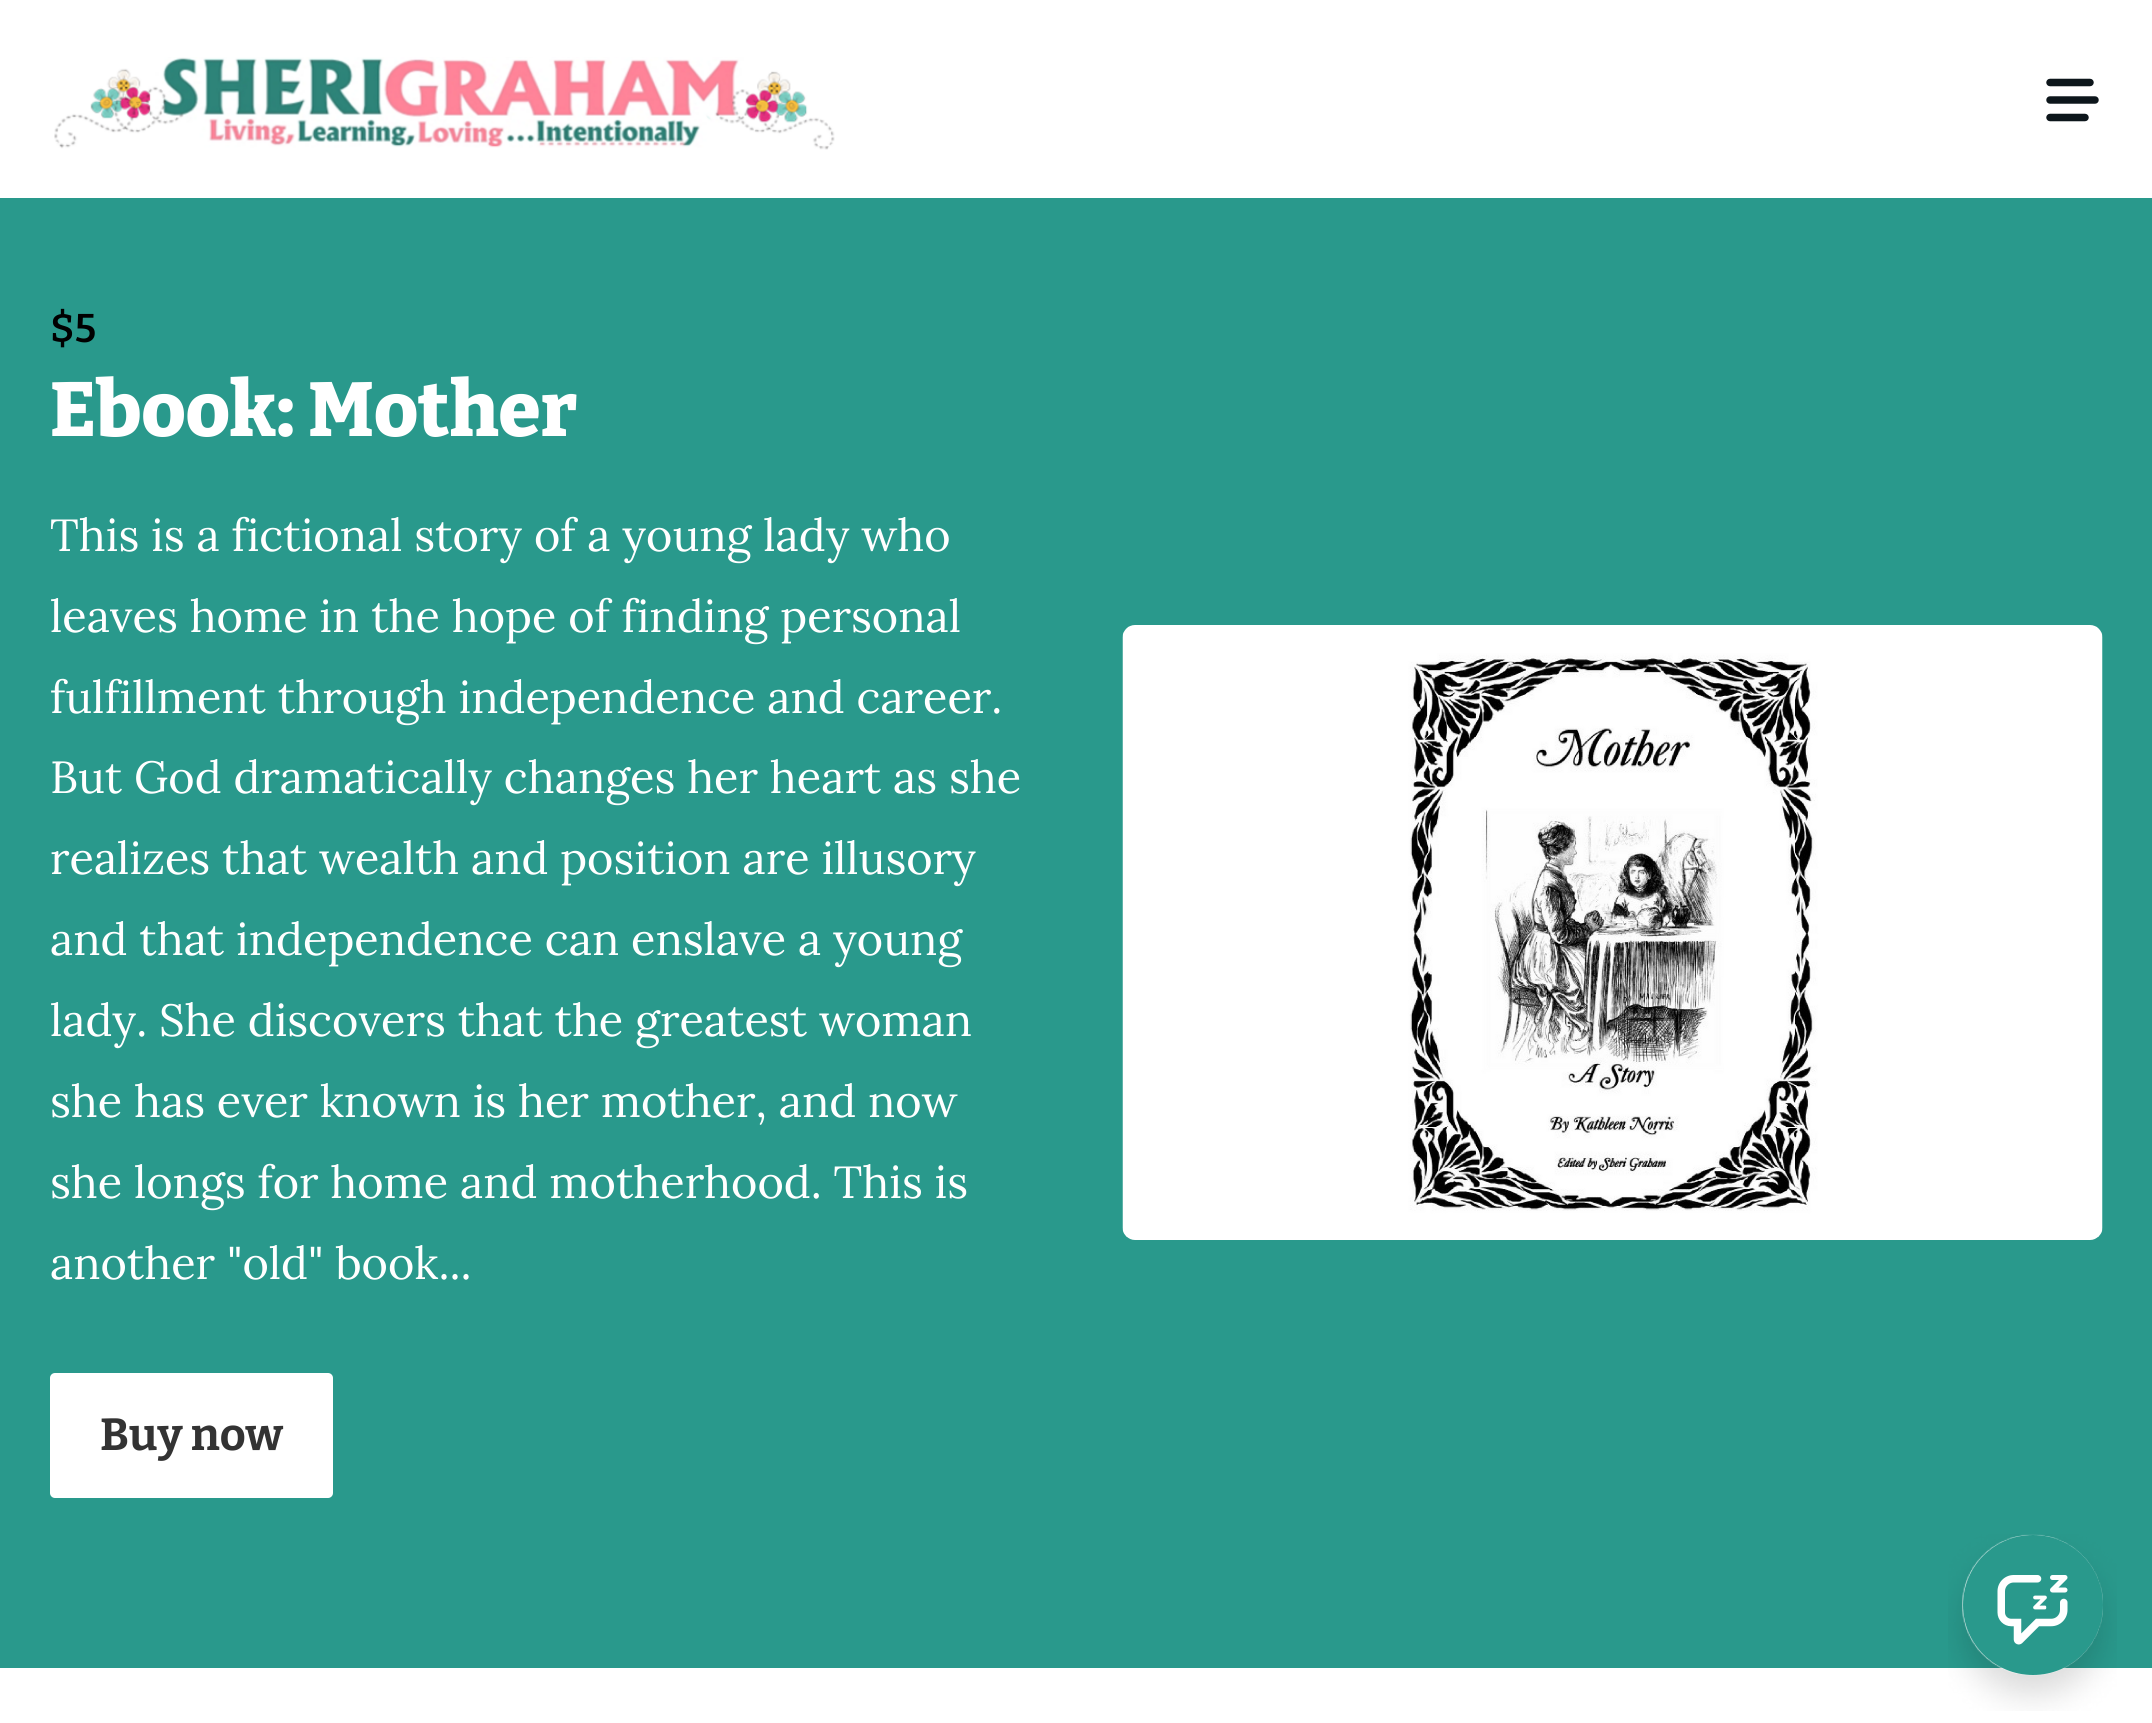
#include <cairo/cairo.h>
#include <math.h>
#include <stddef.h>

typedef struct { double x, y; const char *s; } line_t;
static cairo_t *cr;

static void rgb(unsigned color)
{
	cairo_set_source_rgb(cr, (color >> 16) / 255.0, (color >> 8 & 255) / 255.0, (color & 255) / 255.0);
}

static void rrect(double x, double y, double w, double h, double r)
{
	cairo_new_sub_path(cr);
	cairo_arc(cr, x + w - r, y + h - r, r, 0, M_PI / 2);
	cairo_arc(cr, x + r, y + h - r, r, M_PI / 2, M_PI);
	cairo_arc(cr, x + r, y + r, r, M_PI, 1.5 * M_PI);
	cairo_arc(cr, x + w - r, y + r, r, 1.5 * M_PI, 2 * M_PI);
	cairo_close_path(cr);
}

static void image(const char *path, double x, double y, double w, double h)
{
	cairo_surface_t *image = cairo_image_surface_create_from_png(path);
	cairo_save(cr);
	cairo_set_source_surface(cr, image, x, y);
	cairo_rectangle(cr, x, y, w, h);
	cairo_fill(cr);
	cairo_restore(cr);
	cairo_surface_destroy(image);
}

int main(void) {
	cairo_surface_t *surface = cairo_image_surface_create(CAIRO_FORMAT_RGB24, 2152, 1723);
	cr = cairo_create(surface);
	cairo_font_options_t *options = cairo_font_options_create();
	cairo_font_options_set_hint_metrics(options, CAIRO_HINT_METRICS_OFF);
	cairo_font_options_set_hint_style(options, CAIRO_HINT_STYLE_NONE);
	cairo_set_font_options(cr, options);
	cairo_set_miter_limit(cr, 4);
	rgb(0xffffff);
	cairo_paint(cr);
	image("img/1.png", 54, 57, 781, 93);
	image("img/2.png", 2046, 78, 53, 44);
	rgb(0x29998c);
	cairo_rectangle(cr, 0, 198, 2152, 1470);
	cairo_fill(cr);
	rgb(0xffffff);
	rrect(50, 1373, 283, 125, 5);
	cairo_fill(cr);
	image("img/3.png", 1122, 625, 981, 615);
	image("img/4.png", 1948, 1534, 169, 177);
	rgb(0x29998c);
	cairo_arc(cr, 2033, 1605, 70, 0, 2 * M_PI);
	cairo_fill(cr);
	image("img/5.png", 1997, 1575, 71, 70);
	cairo_select_font_face(cr, "Bitter SemiBold", CAIRO_FONT_SLANT_NORMAL, CAIRO_FONT_WEIGHT_NORMAL);
	cairo_set_font_size(cr, 40);
	rgb(0x000000);
	cairo_move_to(cr, 50, 342);
	cairo_show_text(cr, "$5");
	cairo_select_font_face(cr, "Bitter ExtraBold", CAIRO_FONT_SLANT_NORMAL, CAIRO_FONT_WEIGHT_NORMAL);
	cairo_set_font_size(cr, 76.5);
	rgb(0xffffff);
	cairo_move_to(cr, 50, 436);
	cairo_show_text(cr, "Ebook: Mother");
	cairo_select_font_face(cr, "Lora", CAIRO_FONT_SLANT_NORMAL, CAIRO_FONT_WEIGHT_NORMAL);
	cairo_set_font_size(cr, 45);
	{
		static const line_t items[] = {
			{50, 551, "This is a fictional story of a young lady who"},
			{50, 632, "leaves home in the hope of finding personal"},
			{50, 713, "fulfillment through independence and career."},
			{50, 793, "But God dramatically changes her heart as she"},
			{50, 874, "realizes that wealth and position are illusory"},
			{50, 955, "and that independence can enslave a young"},
			{50, 1036, "lady. She discovers that the greatest woman"},
			{50, 1117, "she has ever known is her mother, and now"},
			{50, 1198, "she longs for home and motherhood. This is"},
			{50, 1279, "another \"old\" book..."},
		};
		for (size_t i = 0; i < sizeof items / sizeof *items; i++) {
			cairo_move_to(cr, items[i].x, items[i].y);
			cairo_show_text(cr, items[i].s);
		}
	}
	cairo_select_font_face(cr, "Bitter", CAIRO_FONT_SLANT_NORMAL, CAIRO_FONT_WEIGHT_BOLD);
	rgb(0x333333);
	cairo_move_to(cr, 100, 1450);
	cairo_show_text(cr, "Buy now");
	cairo_surface_write_to_png(surface, "page.png");
	cairo_font_options_destroy(options);
	cairo_destroy(cr);
	cairo_surface_destroy(surface);
	return 0;
}
